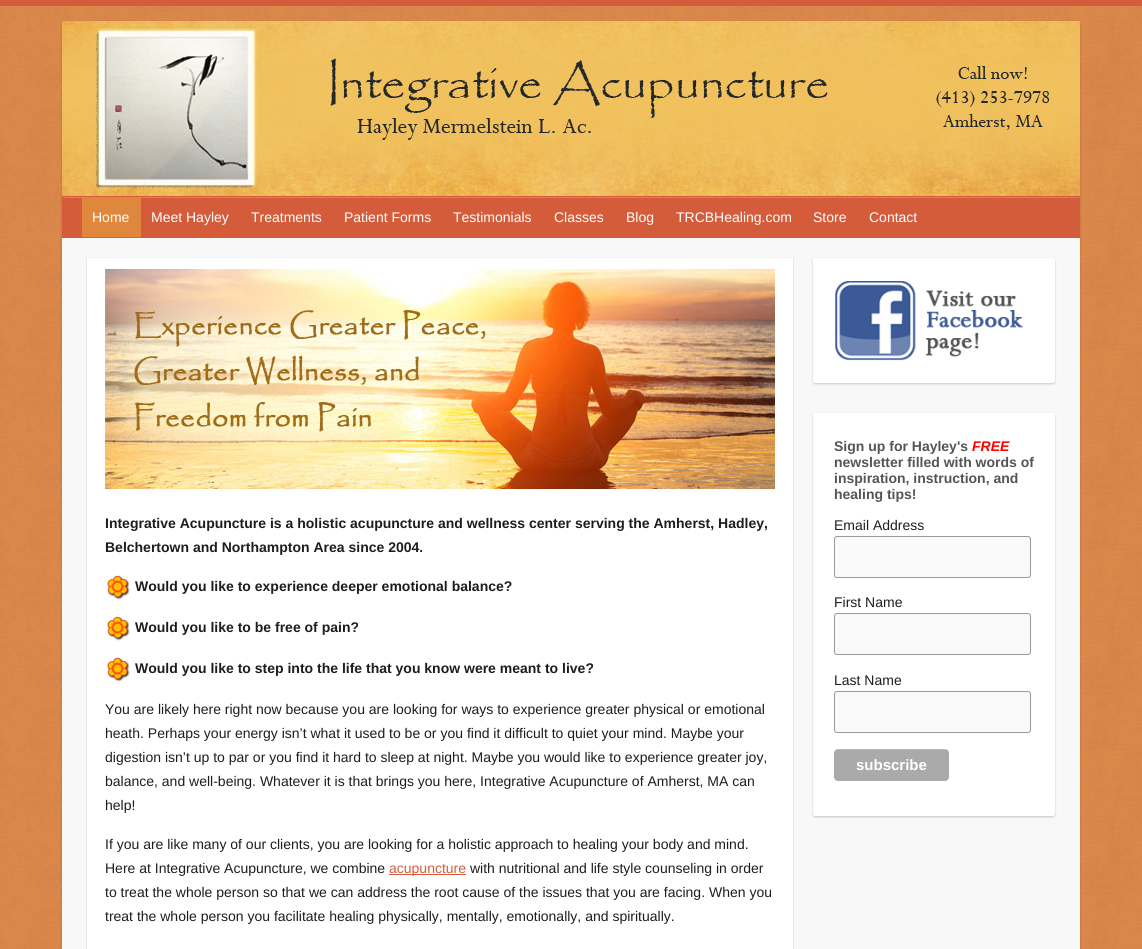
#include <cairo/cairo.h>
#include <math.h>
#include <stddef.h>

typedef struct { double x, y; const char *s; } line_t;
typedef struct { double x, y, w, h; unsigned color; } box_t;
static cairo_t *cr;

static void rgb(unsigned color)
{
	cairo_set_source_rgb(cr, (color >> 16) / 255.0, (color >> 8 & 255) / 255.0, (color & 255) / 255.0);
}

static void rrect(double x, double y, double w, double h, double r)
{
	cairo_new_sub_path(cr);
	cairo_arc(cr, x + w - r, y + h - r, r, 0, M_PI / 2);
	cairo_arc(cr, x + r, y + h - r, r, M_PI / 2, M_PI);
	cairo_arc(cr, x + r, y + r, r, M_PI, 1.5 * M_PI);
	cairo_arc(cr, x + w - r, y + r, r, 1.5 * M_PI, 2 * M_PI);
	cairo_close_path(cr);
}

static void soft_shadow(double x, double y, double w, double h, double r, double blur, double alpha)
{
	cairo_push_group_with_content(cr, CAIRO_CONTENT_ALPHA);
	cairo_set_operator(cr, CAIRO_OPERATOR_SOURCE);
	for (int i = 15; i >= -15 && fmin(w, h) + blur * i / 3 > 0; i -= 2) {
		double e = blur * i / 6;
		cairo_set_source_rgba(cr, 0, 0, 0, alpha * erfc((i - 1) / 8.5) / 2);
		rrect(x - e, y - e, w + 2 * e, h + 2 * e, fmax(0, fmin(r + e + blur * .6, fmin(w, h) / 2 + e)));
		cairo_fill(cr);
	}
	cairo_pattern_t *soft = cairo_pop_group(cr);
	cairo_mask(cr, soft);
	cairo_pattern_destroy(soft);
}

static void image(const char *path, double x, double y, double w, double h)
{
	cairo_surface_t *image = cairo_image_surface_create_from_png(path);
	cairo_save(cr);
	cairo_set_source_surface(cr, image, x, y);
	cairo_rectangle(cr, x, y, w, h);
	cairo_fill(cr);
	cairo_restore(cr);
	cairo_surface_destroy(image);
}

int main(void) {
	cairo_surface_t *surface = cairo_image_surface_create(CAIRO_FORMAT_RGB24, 1142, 949);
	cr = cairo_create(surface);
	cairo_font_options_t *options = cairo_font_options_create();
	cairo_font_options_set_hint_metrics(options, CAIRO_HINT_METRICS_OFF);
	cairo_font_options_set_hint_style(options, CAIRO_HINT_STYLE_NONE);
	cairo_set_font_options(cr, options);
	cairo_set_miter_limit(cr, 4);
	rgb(0xffffff);
	cairo_paint(cr);
	image("img/1.png", 0, 6, 1142, 943);
	rgb(0xd45c3b);
	cairo_rectangle(cr, 0, 0, 1142, 6);
	cairo_fill(cr);
	rgb(0x000000);
	soft_shadow(62, 22, 1018, 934, 4, 1, 0.2);
	rgb(0xf8f8f8);
	cairo_rectangle(cr, 62, 238, 1018, 711);
	cairo_fill(cr);
	image("img/2.png", 62, 21, 1018, 175);
	{
		static const box_t items[] = {
			{62, 196, 1018, 42, 0xd45c3b},
			{63, 197, 1016, 1, 0xdd7d62},
			{82, 197, 59, 40, 0xe0873e},
		};
		for (size_t i = 0; i < sizeof items / sizeof *items; i++) {
			rgb(items[i].color);
			cairo_rectangle(cr, items[i].x, items[i].y, items[i].w, items[i].h);
			cairo_fill(cr);
		}
	}
	rgb(0x000000);
	soft_shadow(87, 259, 706, 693, 0, 1, 0.2);
	rgb(0xffffff);
	cairo_rectangle(cr, 87, 258, 706, 691);
	cairo_fill(cr);
	image("img/3.png", 105, 269, 670, 220);
	image("img/4.png", 107, 575, 23, 25);
	image("img/4.png", 107, 616, 23, 25);
	image("img/4.png", 107, 657, 23, 25);
	rgb(0xd45c3b);
	cairo_rectangle(cr, 389, 874, 77, 1);
	cairo_fill(cr);
	rgb(0x000000);
	soft_shadow(813, 259, 242, 125, 2, 1, 0.2);
	rgb(0xffffff);
	rrect(813, 258, 242, 125, 2);
	cairo_fill(cr);
	image("img/5.png", 835, 281, 189, 80);
	rgb(0x000000);
	soft_shadow(813, 414, 242, 403, 2, 1, 0.2);
	rgb(0xffffff);
	rrect(813, 413, 242, 403, 2);
	cairo_fill(cr);
	rgb(0xf9f9f9);
	rrect(834.5, 536.5, 196, 41, 2.5);
	cairo_fill_preserve(cr);
	rgb(0x999999);
	cairo_set_line_width(cr, 1);
	cairo_stroke(cr);
	rgb(0xf9f9f9);
	rrect(834.5, 613.5, 196, 41, 2.5);
	cairo_fill_preserve(cr);
	rgb(0x999999);
	cairo_stroke(cr);
	rgb(0xf9f9f9);
	rrect(834.5, 691.5, 196, 41, 2.5);
	cairo_fill_preserve(cr);
	rgb(0x999999);
	cairo_stroke(cr);
	rgb(0xaaaaaa);
	rrect(834, 749, 115, 32, 4);
	cairo_fill(cr);
	cairo_set_source_rgba(cr, 1, 1, 1, 0.2);
	cairo_new_path(cr);
	cairo_move_to(cr, 838, 750);
	cairo_line_to(cr, 945, 750);
	cairo_curve_to(cr, 947, 750, 949, 752, 949, 754);
	cairo_curve_to(cr, 949, 744, 931, 749, 927, 749);
	cairo_line_to(cr, 856, 749);
	cairo_curve_to(cr, 852, 749, 834, 744, 834, 754);
	cairo_curve_to(cr, 834, 752, 836, 750, 838, 750);
	cairo_close_path(cr);
	cairo_fill(cr);
	cairo_select_font_face(cr, "Liberation Sans", CAIRO_FONT_SLANT_NORMAL, CAIRO_FONT_WEIGHT_NORMAL);
	cairo_set_font_size(cr, 14);
	rgb(0xffffff);
	{
		static const line_t items[] = {
			{92, 222, "Home"},
			{151, 222, "Meet Hayley"},
			{251, 222, "Treatments"},
			{344, 222, "Patient Forms"},
			{453, 222, "Testimonials"},
			{554, 222, "Classes"},
			{626, 222, "Blog"},
			{676, 222, "TRCBHealing.com"},
			{813, 222, "Store"},
			{869, 222, "Contact"},
		};
		for (size_t i = 0; i < sizeof items / sizeof *items; i++) {
			cairo_move_to(cr, items[i].x, items[i].y);
			cairo_show_text(cr, items[i].s);
		}
	}
	cairo_select_font_face(cr, "Liberation Sans", CAIRO_FONT_SLANT_NORMAL, CAIRO_FONT_WEIGHT_BOLD);
	rgb(0x1d1d1d);
	{
		static const line_t items[] = {
			{105, 528, "Integrative Acupuncture is a holistic acupuncture and wellness center serving the Amherst, Hadley,"},
			{105, 552, "Belchertown and Northampton Area since 2004."},
			{135, 591, "Would you like to experience deeper emotional balance?"},
			{135, 632, "Would you like to be free of pain?"},
			{135, 673, "Would you like to step into the life that you know were meant to live?"},
		};
		for (size_t i = 0; i < sizeof items / sizeof *items; i++) {
			cairo_move_to(cr, items[i].x, items[i].y);
			cairo_show_text(cr, items[i].s);
		}
	}
	cairo_select_font_face(cr, "Liberation Sans", CAIRO_FONT_SLANT_NORMAL, CAIRO_FONT_WEIGHT_NORMAL);
	{
		static const line_t items[] = {
			{105, 714, "You are likely here right now because you are looking for ways to experience greater physical or emotional"},
			{105, 738, "heath. Perhaps your energy isn’t what it used to be or you find it difficult to quiet your mind. Maybe your"},
			{105, 762, "digestion isn’t up to par or you find it hard to sleep at night. Maybe you would like to experience greater joy,"},
			{105, 786, "balance, and well-being. Whatever it is that brings you here, Integrative Acupuncture of Amherst, MA can"},
			{105, 810, "help!"},
			{105, 849, "If you are like many of our clients, you are looking for a holistic approach to healing your body and mind."},
			{105, 873, "Here at Integrative Acupuncture, we combine"},
		};
		for (size_t i = 0; i < sizeof items / sizeof *items; i++) {
			cairo_move_to(cr, items[i].x, items[i].y);
			cairo_show_text(cr, items[i].s);
		}
	}
	rgb(0xd45c3b);
	cairo_move_to(cr, 389, 873);
	cairo_show_text(cr, "acupuncture");
	rgb(0x1d1d1d);
	{
		static const line_t items[] = {
			{470, 873, "with nutritional and life style counseling in order"},
			{105, 897, "to treat the whole person so that we can address the root cause of the issues that you are facing. When you"},
			{105, 921, "treat the whole person you facilitate healing physically, mentally, emotionally, and spiritually."},
		};
		for (size_t i = 0; i < sizeof items / sizeof *items; i++) {
			cairo_move_to(cr, items[i].x, items[i].y);
			cairo_show_text(cr, items[i].s);
		}
	}
	cairo_select_font_face(cr, "Liberation Sans", CAIRO_FONT_SLANT_NORMAL, CAIRO_FONT_WEIGHT_BOLD);
	rgb(0x555555);
	cairo_move_to(cr, 834, 451);
	cairo_show_text(cr, "Sign up for Hayley's");
	cairo_select_font_face(cr, "Liberation Sans", CAIRO_FONT_SLANT_ITALIC, CAIRO_FONT_WEIGHT_BOLD);
	rgb(0xff0000);
	cairo_move_to(cr, 972, 451);
	cairo_show_text(cr, "FREE");
	cairo_select_font_face(cr, "Liberation Sans", CAIRO_FONT_SLANT_NORMAL, CAIRO_FONT_WEIGHT_BOLD);
	rgb(0x555555);
	{
		static const line_t items[] = {
			{834, 467, "newsletter filled with words of"},
			{834, 483, "inspiration, instruction, and"},
			{834, 499, "healing tips!"},
		};
		for (size_t i = 0; i < sizeof items / sizeof *items; i++) {
			cairo_move_to(cr, items[i].x, items[i].y);
			cairo_show_text(cr, items[i].s);
		}
	}
	cairo_select_font_face(cr, "Liberation Sans", CAIRO_FONT_SLANT_NORMAL, CAIRO_FONT_WEIGHT_NORMAL);
	rgb(0x1d1d1d);
	{
		static const line_t items[] = {
			{834, 530, "Email Address"},
			{834, 607, "First Name"},
			{834, 685, "Last Name"},
		};
		for (size_t i = 0; i < sizeof items / sizeof *items; i++) {
			cairo_move_to(cr, items[i].x, items[i].y);
			cairo_show_text(cr, items[i].s);
		}
	}
	cairo_select_font_face(cr, "Liberation Sans", CAIRO_FONT_SLANT_NORMAL, CAIRO_FONT_WEIGHT_BOLD);
	cairo_set_font_size(cr, 15);
	rgb(0xffffff);
	cairo_move_to(cr, 856, 770);
	cairo_show_text(cr, "subscribe");
	cairo_surface_write_to_png(surface, "page.png");
	cairo_font_options_destroy(options);
	cairo_destroy(cr);
	cairo_surface_destroy(surface);
	return 0;
}
